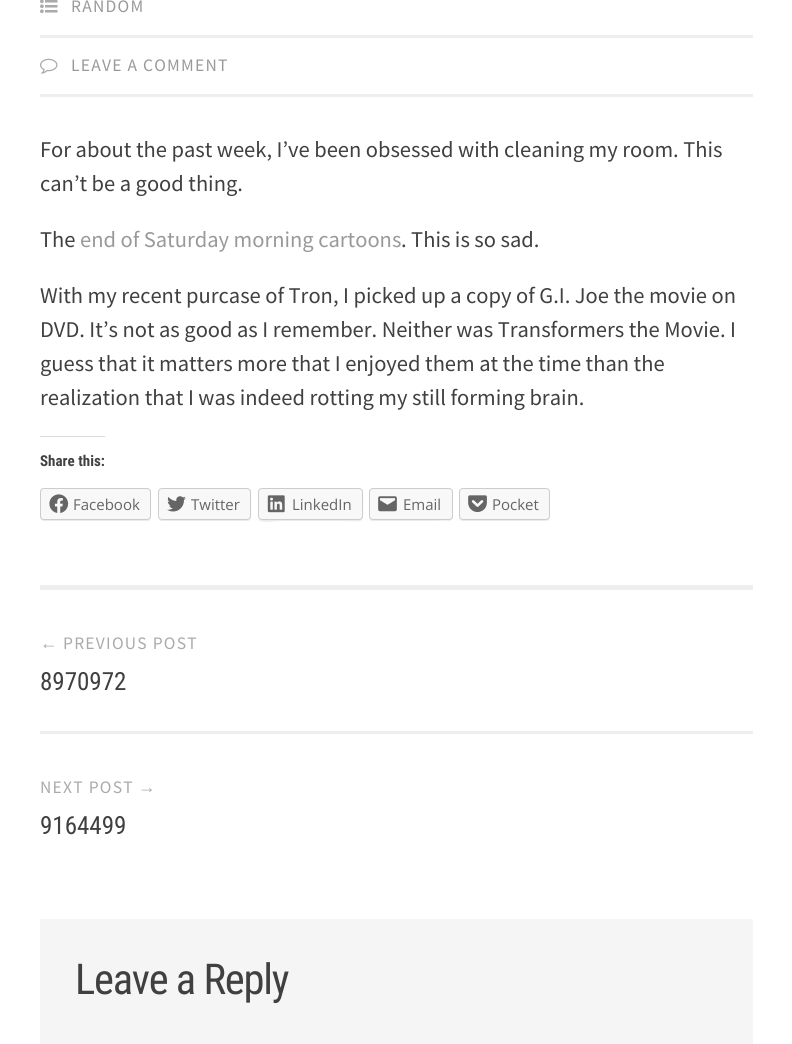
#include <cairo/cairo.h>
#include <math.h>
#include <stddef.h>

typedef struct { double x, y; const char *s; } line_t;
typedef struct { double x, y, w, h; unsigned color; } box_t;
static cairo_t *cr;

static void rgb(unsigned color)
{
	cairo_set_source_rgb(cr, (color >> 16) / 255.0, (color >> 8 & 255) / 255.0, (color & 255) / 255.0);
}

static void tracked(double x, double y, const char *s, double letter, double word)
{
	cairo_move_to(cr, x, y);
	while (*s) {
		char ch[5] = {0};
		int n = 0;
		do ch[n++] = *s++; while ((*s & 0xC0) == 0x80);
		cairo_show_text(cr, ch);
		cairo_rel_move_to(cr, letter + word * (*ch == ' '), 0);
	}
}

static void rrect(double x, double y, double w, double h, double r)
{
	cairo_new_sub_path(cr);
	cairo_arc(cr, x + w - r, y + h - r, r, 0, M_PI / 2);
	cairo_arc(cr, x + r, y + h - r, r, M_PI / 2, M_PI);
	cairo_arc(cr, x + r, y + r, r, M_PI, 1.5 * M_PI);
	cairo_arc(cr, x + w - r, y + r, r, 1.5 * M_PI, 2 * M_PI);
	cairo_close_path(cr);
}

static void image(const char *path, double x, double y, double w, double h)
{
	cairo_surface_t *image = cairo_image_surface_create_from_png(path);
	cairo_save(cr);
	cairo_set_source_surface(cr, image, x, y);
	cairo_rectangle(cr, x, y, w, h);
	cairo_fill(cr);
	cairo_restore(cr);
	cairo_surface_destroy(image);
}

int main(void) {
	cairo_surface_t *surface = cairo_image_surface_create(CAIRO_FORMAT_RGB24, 792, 1044);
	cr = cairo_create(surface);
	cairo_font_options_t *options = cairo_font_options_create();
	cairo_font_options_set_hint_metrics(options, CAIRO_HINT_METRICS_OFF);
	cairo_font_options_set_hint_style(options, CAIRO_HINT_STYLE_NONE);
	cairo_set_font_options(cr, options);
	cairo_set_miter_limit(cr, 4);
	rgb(0xffffff);
	cairo_paint(cr);
	rgb(0xeeeeee);
	cairo_rectangle(cr, 40, 35, 713, 3);
	cairo_fill(cr);
	image("img/1.png", 40, 0, 18, 14);
	cairo_rectangle(cr, 40, 94, 713, 3);
	cairo_fill(cr);
	image("img/2.png", 40, 58, 18, 16);
	rgb(0xdcdcde);
	cairo_rectangle(cr, 40, 436, 65, 1);
	cairo_fill(cr);
	rgb(0xebebeb);
	cairo_new_path(cr);
	cairo_move_to(cr, 40, 516);
	cairo_line_to(cr, 40, 517);
	cairo_curve_to(cr, 40, 519, 42, 521, 44, 521);
	cairo_line_to(cr, 147, 521);
	cairo_curve_to(cr, 149, 521, 151, 520, 151, 518);
	cairo_curve_to(cr, 150, 519, 149, 520, 148, 520);
	cairo_line_to(cr, 44, 520);
	cairo_curve_to(cr, 42, 520, 40, 518, 40, 516);
	cairo_close_path(cr);
	cairo_fill(cr);
	rgb(0xf8f8f8);
	rrect(40.5, 488.5, 110, 31, 3.5);
	cairo_fill_preserve(cr);
	rgb(0xcccccc);
	cairo_set_line_width(cr, 1);
	cairo_stroke(cr);
	image("img/3.png", 49, 494, 20, 19);
	rgb(0xebebeb);
	cairo_new_path(cr);
	cairo_move_to(cr, 158, 519);
	cairo_curve_to(cr, 159, 520, 160, 521, 162, 521);
	cairo_line_to(cr, 247, 521);
	cairo_curve_to(cr, 249, 521, 251, 520, 251, 518);
	cairo_curve_to(cr, 250, 519, 249, 520, 248, 520);
	cairo_line_to(cr, 161, 520);
	cairo_close_path(cr);
	cairo_fill(cr);
	rgb(0xf8f8f8);
	rrect(158.5, 488.5, 92, 31, 3.5);
	cairo_fill_preserve(cr);
	rgb(0xcccccc);
	cairo_stroke(cr);
	image("img/4.png", 167, 496, 19, 16);
	rgb(0xebebeb);
	cairo_new_path(cr);
	cairo_move_to(cr, 258, 519);
	cairo_curve_to(cr, 261, 524, 275, 521, 278, 521);
	cairo_line_to(cr, 343, 521);
	cairo_curve_to(cr, 365, 521, 363, 525, 363, 505);
	cairo_curve_to(cr, 363, 502, 364, 494, 362, 491);
	cairo_line_to(cr, 362, 516);
	cairo_curve_to(cr, 362, 518, 361, 520, 359, 520);
	cairo_line_to(cr, 261, 520);
	cairo_curve_to(cr, 260, 520, 259, 519, 258, 519);
	cairo_close_path(cr);
	cairo_fill(cr);
	rgb(0xf8f8f8);
	rrect(258.5, 488.5, 104, 31, 3.5);
	cairo_fill_preserve(cr);
	rgb(0xcccccc);
	cairo_stroke(cr);
	image("img/5.png", 267, 495, 18, 18);
	rgb(0xebebeb);
	cairo_new_path(cr);
	cairo_move_to(cr, 369, 518);
	cairo_curve_to(cr, 369, 520, 371, 521, 373, 521);
	cairo_line_to(cr, 449, 521);
	cairo_curve_to(cr, 451, 521, 453, 519, 453, 517);
	cairo_line_to(cr, 453, 493);
	cairo_line_to(cr, 452, 491);
	cairo_line_to(cr, 452, 512);
	cairo_curve_to(cr, 452, 523, 449, 520, 436, 520);
	cairo_line_to(cr, 372, 520);
	cairo_curve_to(cr, 371, 520, 370, 519, 369, 518);
	cairo_close_path(cr);
	cairo_fill(cr);
	rgb(0xf8f8f8);
	rrect(369.5, 488.5, 83, 31, 3.5);
	cairo_fill_preserve(cr);
	rgb(0xcccccc);
	cairo_stroke(cr);
	image("img/6.png", 378, 496, 19, 16);
	rgb(0xebebeb);
	cairo_new_path(cr);
	cairo_move_to(cr, 459, 518);
	cairo_curve_to(cr, 459, 520, 461, 521, 463, 521);
	cairo_line_to(cr, 546, 521);
	cairo_curve_to(cr, 548, 521, 550, 519, 550, 517);
	cairo_line_to(cr, 550, 516);
	cairo_curve_to(cr, 550, 518, 548, 520, 546, 520);
	cairo_line_to(cr, 462, 520);
	cairo_curve_to(cr, 461, 520, 460, 519, 459, 518);
	cairo_close_path(cr);
	cairo_fill(cr);
	rgb(0xf8f8f8);
	rrect(459.5, 488.5, 90, 31, 3.5);
	cairo_fill_preserve(cr);
	rgb(0xcccccc);
	cairo_stroke(cr);
	image("img/7.png", 468, 495, 19, 18);
	{
		static const box_t items[] = {
			{40, 585, 713, 5, 0xeeeeee},
			{40, 731, 713, 3, 0xeeeeee},
			{40, 919, 713, 125, 0xf5f5f5},
		};
		for (size_t i = 0; i < sizeof items / sizeof *items; i++) {
			rgb(items[i].color);
			cairo_rectangle(cr, items[i].x, items[i].y, items[i].w, items[i].h);
			cairo_fill(cr);
		}
	}
	cairo_select_font_face(cr, "Source Sans Pro", CAIRO_FONT_SLANT_NORMAL, CAIRO_FONT_WEIGHT_NORMAL);
	cairo_set_font_size(cr, 17.5);
	rgb(0x999999);
	tracked(71, 12, "RANDOM", 1.25, 0);
	tracked(71, 71, "LEAVE A COMMENT", 1.25, 0);
	cairo_set_font_size(cr, 22.5);
	rgb(0x404040);
	{
		static const line_t items[] = {
			{40, 157, "For about the past week, I’ve been obsessed with cleaning my room. This"},
			{40, 191, "can’t be a good thing."},
			{40, 247, "The"},
		};
		for (size_t i = 0; i < sizeof items / sizeof *items; i++) {
			cairo_move_to(cr, items[i].x, items[i].y);
			cairo_show_text(cr, items[i].s);
		}
	}
	rgb(0x999999);
	cairo_move_to(cr, 80, 247);
	cairo_show_text(cr, "end of Saturday morning cartoons");
	rgb(0x404040);
	{
		static const line_t items[] = {
			{401, 247, ". This is so sad."},
			{40, 303, "With my recent purcase of Tron, I picked up a copy of G.I. Joe the movie on"},
			{40, 337, "DVD. It’s not as good as I remember. Neither was Transformers the Movie. I"},
			{40, 371, "guess that it matters more that I enjoyed them at the time than the"},
			{40, 405, "realization that I was indeed rotting my still forming brain."},
		};
		for (size_t i = 0; i < sizeof items / sizeof *items; i++) {
			cairo_move_to(cr, items[i].x, items[i].y);
			cairo_show_text(cr, items[i].s);
		}
	}
	cairo_select_font_face(cr, "Roboto Condensed", CAIRO_FONT_SLANT_NORMAL, CAIRO_FONT_WEIGHT_BOLD);
	cairo_set_font_size(cr, 15);
	cairo_move_to(cr, 40, 466);
	cairo_show_text(cr, "Share this:");
	cairo_select_font_face(cr, "Open Sans", CAIRO_FONT_SLANT_NORMAL, CAIRO_FONT_WEIGHT_NORMAL);
	rgb(0x656565);
	{
		static const line_t items[] = {
			{73, 510, "Facebook"},
			{191, 510, "Twitter"},
			{292, 510, "LinkedIn"},
			{403, 510, "Email"},
			{492, 510, "Pocket"},
		};
		for (size_t i = 0; i < sizeof items / sizeof *items; i++) {
			cairo_move_to(cr, items[i].x, items[i].y);
			cairo_show_text(cr, items[i].s);
		}
	}
	cairo_select_font_face(cr, "Liberation Sans", CAIRO_FONT_SLANT_NORMAL, CAIRO_FONT_WEIGHT_NORMAL);
	cairo_set_font_size(cr, 17.5);
	rgb(0xaaaaaa);
	tracked(40, 649, "←", 1.25, 0);
	cairo_select_font_face(cr, "Source Sans Pro", CAIRO_FONT_SLANT_NORMAL, CAIRO_FONT_WEIGHT_NORMAL);
	tracked(63, 649, "PREVIOUS POST", 1.25, 0);
	cairo_select_font_face(cr, "Roboto Condensed", CAIRO_FONT_SLANT_NORMAL, CAIRO_FONT_WEIGHT_NORMAL);
	cairo_set_font_size(cr, 25);
	rgb(0x404040);
	cairo_move_to(cr, 40, 690);
	cairo_show_text(cr, "8970972");
	cairo_select_font_face(cr, "Source Sans Pro", CAIRO_FONT_SLANT_NORMAL, CAIRO_FONT_WEIGHT_NORMAL);
	cairo_set_font_size(cr, 17.5);
	rgb(0xaaaaaa);
	tracked(40, 793, "NEXT POST", 1.25, 0);
	cairo_select_font_face(cr, "Liberation Sans", CAIRO_FONT_SLANT_NORMAL, CAIRO_FONT_WEIGHT_NORMAL);
	tracked(138, 793, "→", 1.25, 0);
	cairo_select_font_face(cr, "Roboto Condensed", CAIRO_FONT_SLANT_NORMAL, CAIRO_FONT_WEIGHT_NORMAL);
	cairo_set_font_size(cr, 25);
	rgb(0x404040);
	cairo_move_to(cr, 40, 834);
	cairo_show_text(cr, "9164499");
	cairo_set_font_size(cr, 42.5);
	tracked(75, 994, "Leave a Reply", -1.25, 0);
	cairo_surface_write_to_png(surface, "page.png");
	cairo_font_options_destroy(options);
	cairo_destroy(cr);
	cairo_surface_destroy(surface);
	return 0;
}
